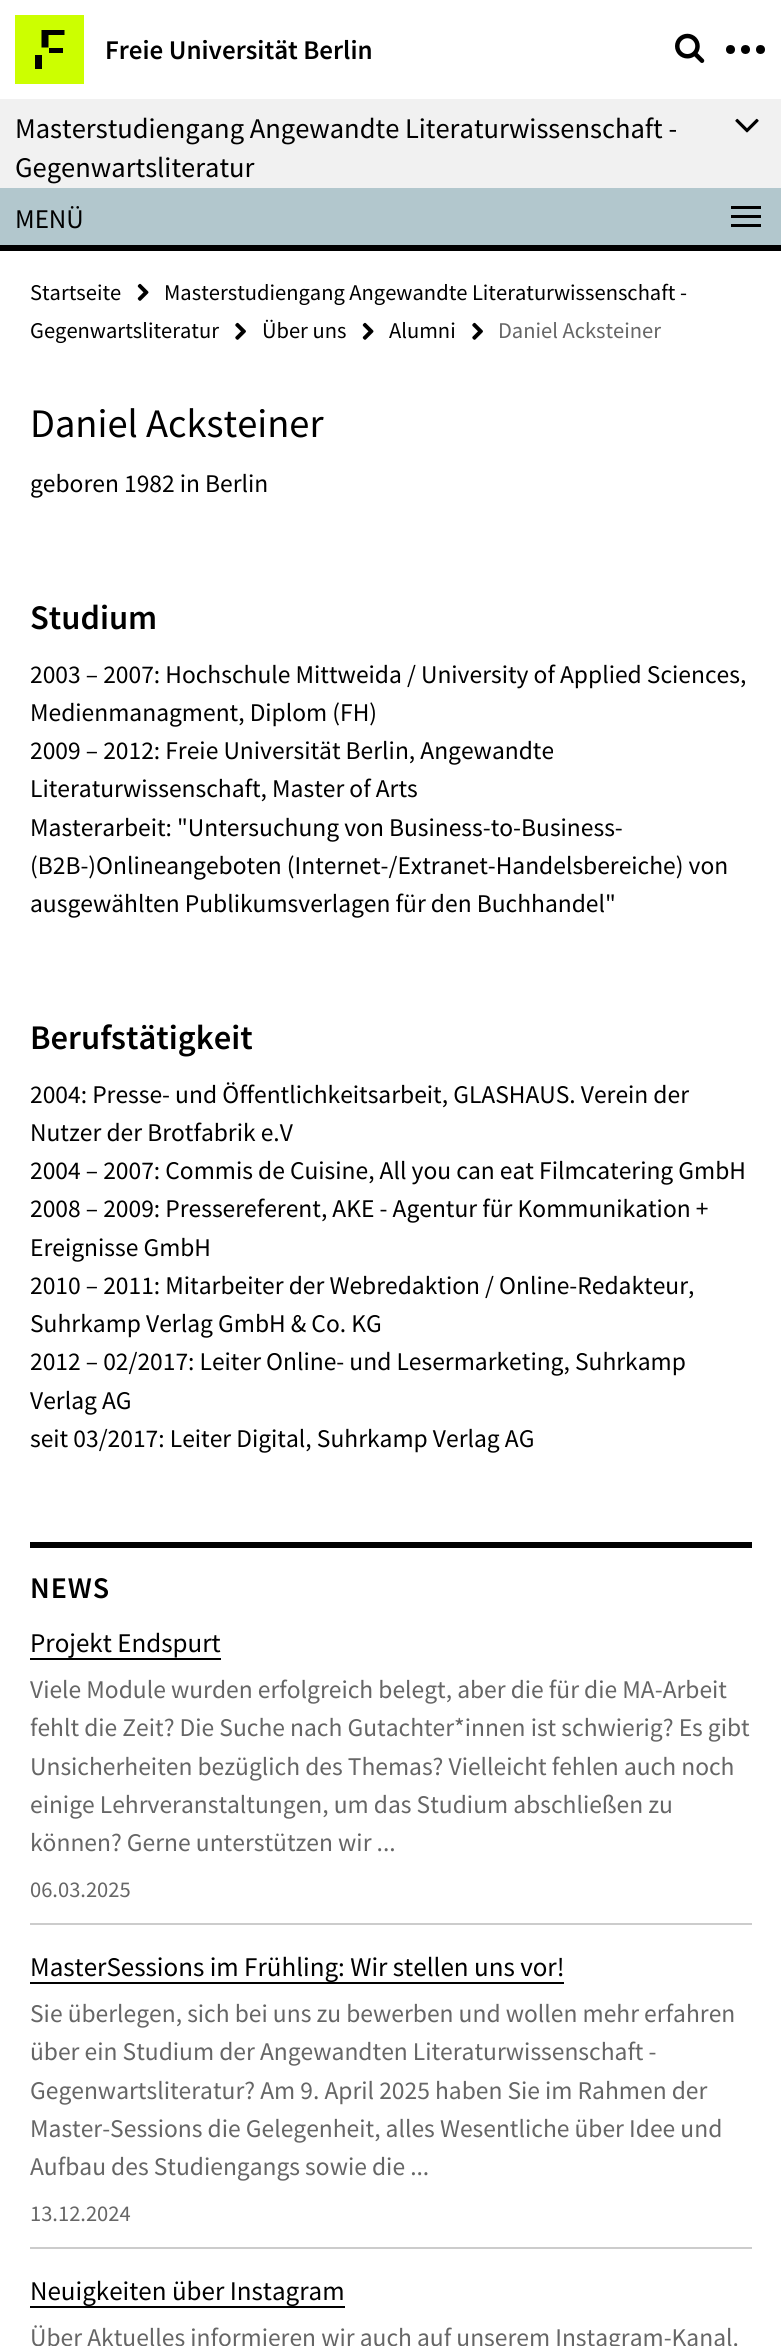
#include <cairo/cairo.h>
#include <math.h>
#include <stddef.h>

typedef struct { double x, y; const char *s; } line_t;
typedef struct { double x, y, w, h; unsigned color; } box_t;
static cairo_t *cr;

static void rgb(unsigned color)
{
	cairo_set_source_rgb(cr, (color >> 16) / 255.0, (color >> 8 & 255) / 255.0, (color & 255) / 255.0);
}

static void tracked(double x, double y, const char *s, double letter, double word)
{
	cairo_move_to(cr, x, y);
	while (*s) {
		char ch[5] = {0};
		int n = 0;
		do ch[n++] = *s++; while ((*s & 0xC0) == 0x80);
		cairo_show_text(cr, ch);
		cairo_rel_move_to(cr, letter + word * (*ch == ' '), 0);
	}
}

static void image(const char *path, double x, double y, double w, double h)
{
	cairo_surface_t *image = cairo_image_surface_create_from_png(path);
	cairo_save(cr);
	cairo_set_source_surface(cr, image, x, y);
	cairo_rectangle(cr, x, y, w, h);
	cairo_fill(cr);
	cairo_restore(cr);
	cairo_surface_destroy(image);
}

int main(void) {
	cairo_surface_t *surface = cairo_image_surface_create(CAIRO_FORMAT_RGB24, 781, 2346);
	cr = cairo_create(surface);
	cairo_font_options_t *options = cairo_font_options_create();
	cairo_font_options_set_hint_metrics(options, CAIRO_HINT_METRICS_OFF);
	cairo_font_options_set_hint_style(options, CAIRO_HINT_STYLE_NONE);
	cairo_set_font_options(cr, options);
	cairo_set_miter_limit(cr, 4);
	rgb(0xffffff);
	cairo_paint(cr);
	rgb(0xccff00);
	cairo_rectangle(cr, 15, 15, 69, 69);
	cairo_fill(cr);
	rgb(0x000000);
	cairo_new_path(cr);
	cairo_move_to(cr, 41.5, 30);
	cairo_line_to(cr, 64.5, 30);
	cairo_line_to(cr, 64.5, 35);
	cairo_line_to(cr, 48.5, 35);
	cairo_line_to(cr, 48.5, 47.5);
	cairo_line_to(cr, 41.5, 47.5);
	cairo_close_path(cr);
	cairo_fill(cr);
	cairo_rectangle(cr, 49, 48, 14, 5);
	cairo_fill(cr);
	cairo_rectangle(cr, 35, 55, 7, 14);
	cairo_fill(cr);
	image("img/1.png", 675, 33, 30, 30);
	cairo_arc(cr, 730.5, 49.5, 4.5, 0, 2 * M_PI);
	cairo_fill(cr);
	cairo_arc(cr, 745.5, 49.5, 4.5, 0, 2 * M_PI);
	cairo_fill(cr);
	cairo_arc(cr, 760.5, 49.5, 4.5, 0, 2 * M_PI);
	cairo_fill(cr);
	rgb(0xf1f1f1);
	cairo_rectangle(cr, 0, 99, 781, 89);
	cairo_fill(cr);
	image("img/2.png", 735, 118, 24, 15);
	{
		static const box_t items[] = {
			{0, 188, 781, 57, 0xb2c7cd},
			{0, 245, 781, 6, 0x000000},
			{731, 206, 30, 3, 0x000000},
			{731, 215, 30, 3, 0x000000},
			{731, 224, 30, 3, 0x000000},
		};
		for (size_t i = 0; i < sizeof items / sizeof *items; i++) {
			rgb(items[i].color);
			cairo_rectangle(cr, items[i].x, items[i].y, items[i].w, items[i].h);
			cairo_fill(cr);
		}
	}
	image("img/3.png", 235, 322, 11, 18);
	image("img/4.png", 137, 283, 12, 18);
	image("img/4.png", 362, 322, 12, 18);
	image("img/3.png", 472, 322, 11, 18);
	{
		static const box_t items[] = {
			{30, 1542, 722, 6, 0x000000},
			{30, 1923, 722, 2, 0xcccccc},
			{30, 1658, 191, 2, 0x000000},
			{30, 2247, 722, 2, 0xcccccc},
			{30, 1982, 534, 2, 0x000000},
			{30, 2306, 315, 2, 0x000000},
		};
		for (size_t i = 0; i < sizeof items / sizeof *items; i++) {
			rgb(items[i].color);
			cairo_rectangle(cr, items[i].x, items[i].y, items[i].w, items[i].h);
			cairo_fill(cr);
		}
	}
	cairo_select_font_face(cr, "Source Sans Pro SemiBold", CAIRO_FONT_SLANT_NORMAL, CAIRO_FONT_WEIGHT_NORMAL);
	cairo_set_font_size(cr, 27);
	cairo_move_to(cr, 105, 59);
	cairo_show_text(cr, "Freie Universität Berlin");
	cairo_select_font_face(cr, "Source Sans Pro", CAIRO_FONT_SLANT_NORMAL, CAIRO_FONT_WEIGHT_NORMAL);
	cairo_set_font_size(cr, 28.5);
	cairo_move_to(cr, 15, 138);
	cairo_show_text(cr, "Masterstudiengang Angewandte Literaturwissenschaft -");
	cairo_move_to(cr, 15, 177);
	cairo_show_text(cr, "Gegenwartsliteratur");
	cairo_set_font_size(cr, 27);
	cairo_move_to(cr, 15, 228);
	cairo_show_text(cr, "MENÜ");
	cairo_set_font_size(cr, 22.5);
	{
		static const line_t items[] = {
			{164, 300, "Masterstudiengang Angewandte Literaturwissenschaft -"},
			{30, 338, "Gegenwartsliteratur"},
			{30, 300, "Startseite"},
			{262, 338, "Über uns"},
			{389, 338, "Alumni"},
		};
		for (size_t i = 0; i < sizeof items / sizeof *items; i++) {
			cairo_move_to(cr, items[i].x, items[i].y);
			cairo_show_text(cr, items[i].s);
		}
	}
	rgb(0x666666);
	cairo_move_to(cr, 498, 338);
	cairo_show_text(cr, "Daniel Acksteiner");
	cairo_set_font_size(cr, 40.5);
	rgb(0x000000);
	cairo_move_to(cr, 30, 437);
	cairo_show_text(cr, "Daniel Acksteiner");
	cairo_set_font_size(cr, 25.5);
	cairo_move_to(cr, 30, 492);
	cairo_show_text(cr, "geboren 1982 in Berlin");
	cairo_select_font_face(cr, "Source Sans Pro SemiBold", CAIRO_FONT_SLANT_NORMAL, CAIRO_FONT_WEIGHT_NORMAL);
	cairo_set_font_size(cr, 34.5);
	cairo_move_to(cr, 30, 629);
	cairo_show_text(cr, "Studium");
	cairo_select_font_face(cr, "Source Sans Pro", CAIRO_FONT_SLANT_NORMAL, CAIRO_FONT_WEIGHT_NORMAL);
	cairo_set_font_size(cr, 25.5);
	{
		static const line_t items[] = {
			{30, 683, "2003 – 2007: Hochschule Mittweida / University of Applied Sciences,"},
			{30, 721, "Medienmanagment, Diplom (FH)"},
			{30, 759, "2009 – 2012: Freie Universität Berlin, Angewandte"},
			{30, 797, "Literaturwissenschaft, Master of Arts"},
			{30, 836, "Masterarbeit: \"Untersuchung von Business-to-Business-"},
			{30, 874, "(B2B-)Onlineangeboten (Internet-/Extranet-Handelsbereiche) von"},
			{30, 912, "ausgewählten Publikumsverlagen für den Buchhandel\""},
		};
		for (size_t i = 0; i < sizeof items / sizeof *items; i++) {
			cairo_move_to(cr, items[i].x, items[i].y);
			cairo_show_text(cr, items[i].s);
		}
	}
	cairo_select_font_face(cr, "Source Sans Pro SemiBold", CAIRO_FONT_SLANT_NORMAL, CAIRO_FONT_WEIGHT_NORMAL);
	cairo_set_font_size(cr, 34.5);
	cairo_move_to(cr, 30, 1049);
	cairo_show_text(cr, "Berufstätigkeit");
	cairo_select_font_face(cr, "Source Sans Pro", CAIRO_FONT_SLANT_NORMAL, CAIRO_FONT_WEIGHT_NORMAL);
	cairo_set_font_size(cr, 25.5);
	{
		static const line_t items[] = {
			{30, 1103, "2004: Presse- und Öffentlichkeitsarbeit, GLASHAUS. Verein der"},
			{30, 1141, "Nutzer der Brotfabrik e.V"},
			{30, 1179, "2004 – 2007: Commis de Cuisine, All you can eat Filmcatering GmbH"},
			{30, 1217, "2008 – 2009: Pressereferent, AKE - Agentur für Kommunikation +"},
			{30, 1256, "Ereignisse GmbH"},
			{30, 1294, "2010 – 2011: Mitarbeiter der Webredaktion / Online-Redakteur,"},
			{30, 1332, "Suhrkamp Verlag GmbH & Co. KG"},
			{30, 1370, "2012 – 02/2017: Leiter Online- und Lesermarketing, Suhrkamp"},
			{30, 1409, "Verlag AG"},
			{30, 1447, "seit 03/2017: Leiter Digital, Suhrkamp Verlag AG"},
		};
		for (size_t i = 0; i < sizeof items / sizeof *items; i++) {
			cairo_move_to(cr, items[i].x, items[i].y);
			cairo_show_text(cr, items[i].s);
		}
	}
	cairo_select_font_face(cr, "Source Sans Pro SemiBold", CAIRO_FONT_SLANT_NORMAL, CAIRO_FONT_WEIGHT_NORMAL);
	cairo_set_font_size(cr, 30);
	tracked(30, 1598, "NEWS", 1, 0);
	cairo_select_font_face(cr, "Source Sans Pro", CAIRO_FONT_SLANT_NORMAL, CAIRO_FONT_WEIGHT_NORMAL);
	cairo_set_font_size(cr, 27);
	cairo_move_to(cr, 30, 1652);
	cairo_show_text(cr, "Projekt Endspurt");
	cairo_set_font_size(cr, 25.5);
	rgb(0x666666);
	{
		static const line_t items[] = {
			{30, 1698, "Viele Module wurden erfolgreich belegt, aber die für die MA-Arbeit"},
			{30, 1736, "fehlt die Zeit? Die Suche nach Gutachter*innen ist schwierig? Es gibt"},
			{30, 1775, "Unsicherheiten bezüglich des Themas? Vielleicht fehlen auch noch"},
			{30, 1813, "einige Lehrveranstaltungen, um das Studium abschließen zu"},
			{30, 1851, "können? Gerne unterstützen wir ..."},
		};
		for (size_t i = 0; i < sizeof items / sizeof *items; i++) {
			cairo_move_to(cr, items[i].x, items[i].y);
			cairo_show_text(cr, items[i].s);
		}
	}
	cairo_set_font_size(cr, 22.5);
	cairo_move_to(cr, 30, 1897);
	cairo_show_text(cr, "06.03.2025");
	cairo_set_font_size(cr, 27);
	rgb(0x000000);
	cairo_move_to(cr, 30, 1976);
	cairo_show_text(cr, "MasterSessions im Frühling: Wir stellen uns vor!");
	cairo_set_font_size(cr, 25.5);
	rgb(0x666666);
	{
		static const line_t items[] = {
			{30, 2022, "Sie überlegen, sich bei uns zu bewerben und wollen mehr erfahren"},
			{30, 2060, "über ein Studium der Angewandten Literaturwissenschaft -"},
			{30, 2099, "Gegenwartsliteratur? Am 9. April 2025 haben Sie im Rahmen der"},
			{30, 2137, "Master-Sessions die Gelegenheit, alles Wesentliche über Idee und"},
			{30, 2175, "Aufbau des Studiengangs sowie die ..."},
		};
		for (size_t i = 0; i < sizeof items / sizeof *items; i++) {
			cairo_move_to(cr, items[i].x, items[i].y);
			cairo_show_text(cr, items[i].s);
		}
	}
	cairo_set_font_size(cr, 22.5);
	cairo_move_to(cr, 30, 2221);
	cairo_show_text(cr, "13.12.2024");
	cairo_set_font_size(cr, 27);
	rgb(0x000000);
	cairo_move_to(cr, 30, 2300);
	cairo_show_text(cr, "Neuigkeiten über Instagram");
	cairo_set_font_size(cr, 25.5);
	rgb(0x666666);
	cairo_move_to(cr, 30, 2346);
	cairo_show_text(cr, "Über Aktuelles informieren wir auch auf unserem Instagram-Kanal.");
	cairo_surface_write_to_png(surface, "page.png");
	cairo_font_options_destroy(options);
	cairo_destroy(cr);
	cairo_surface_destroy(surface);
	return 0;
}
